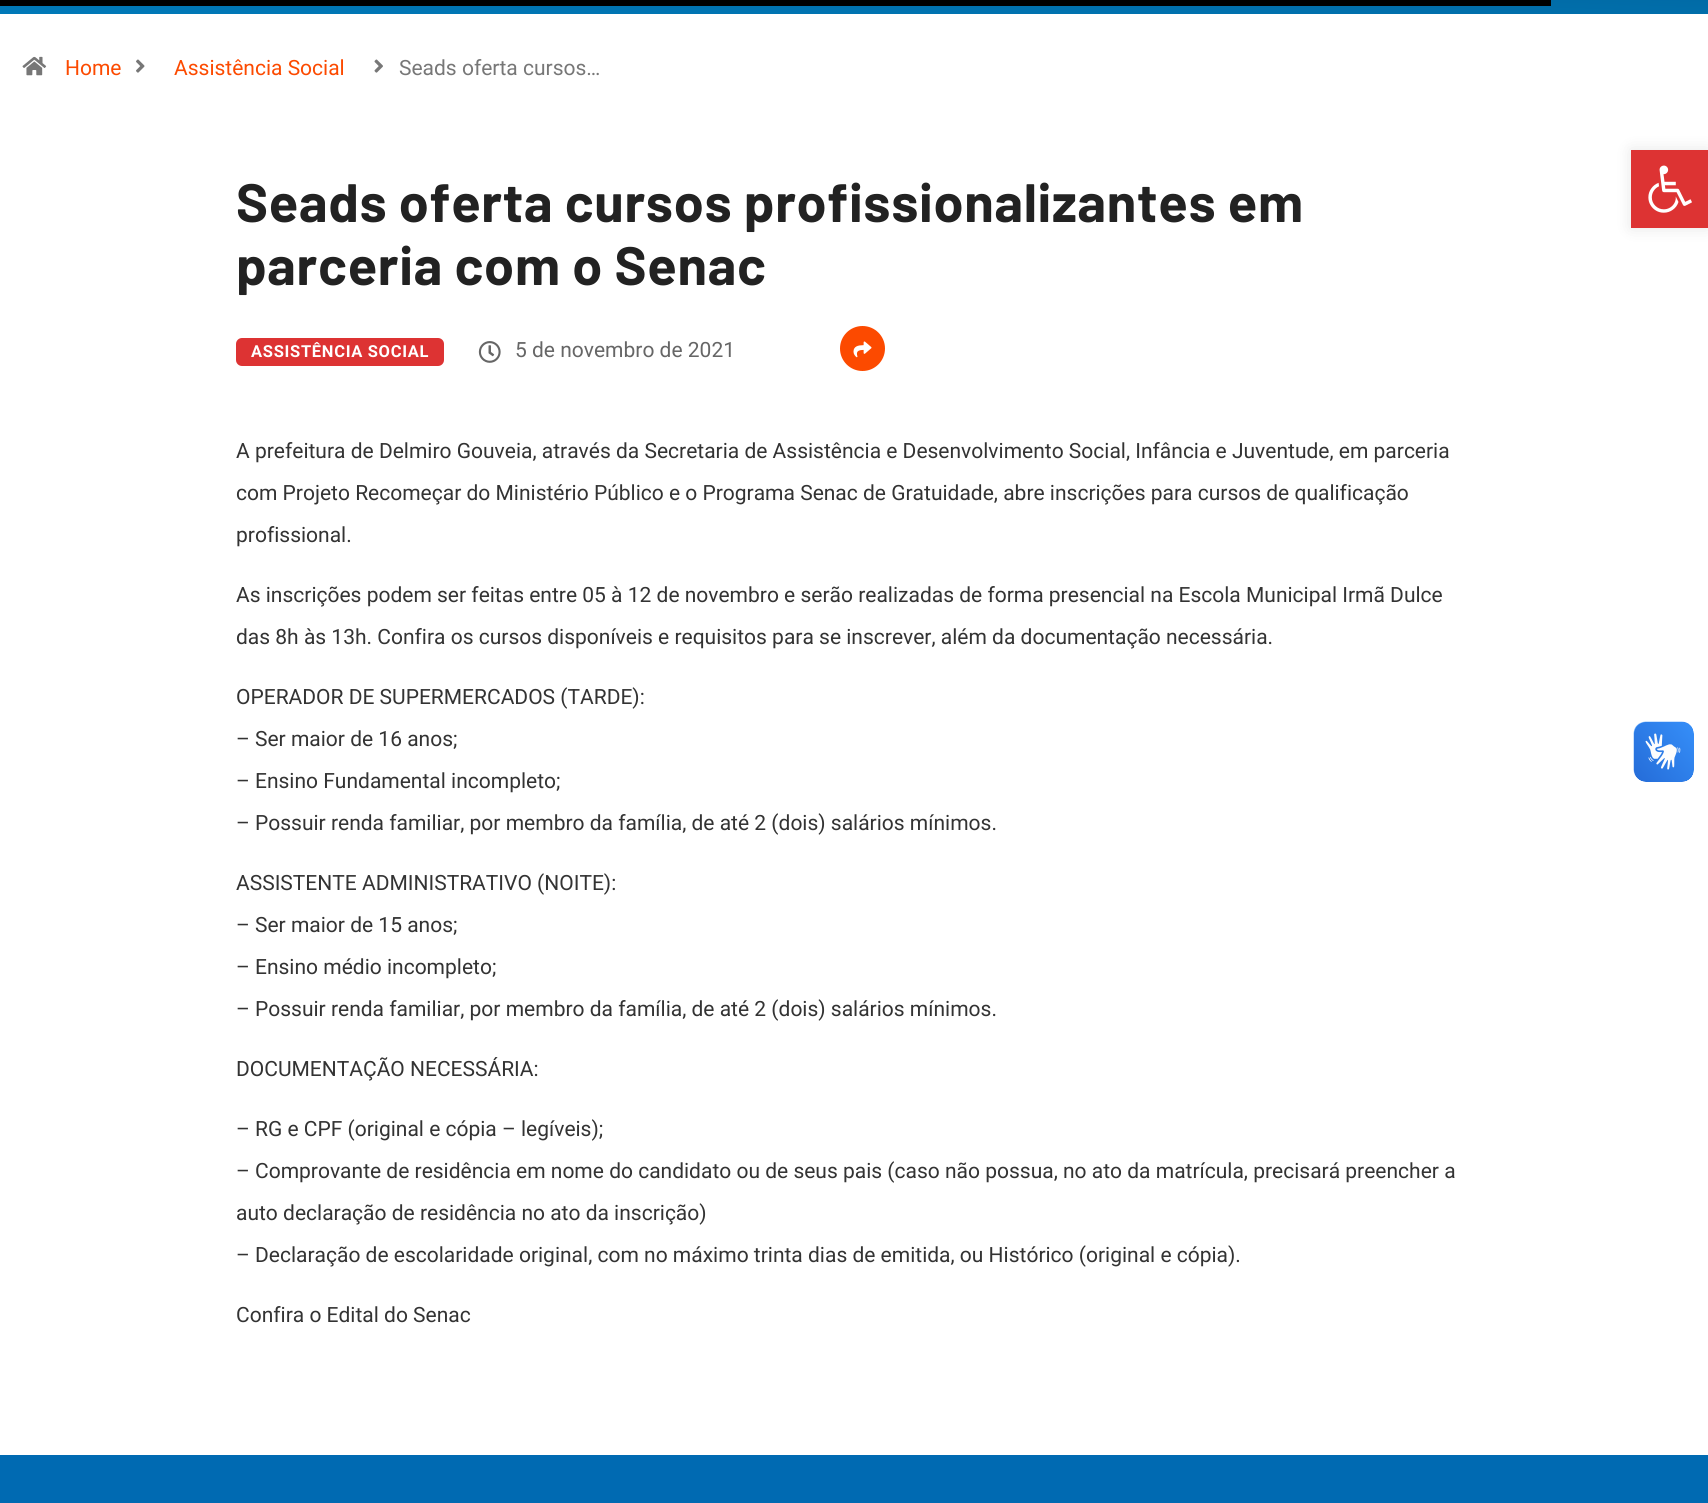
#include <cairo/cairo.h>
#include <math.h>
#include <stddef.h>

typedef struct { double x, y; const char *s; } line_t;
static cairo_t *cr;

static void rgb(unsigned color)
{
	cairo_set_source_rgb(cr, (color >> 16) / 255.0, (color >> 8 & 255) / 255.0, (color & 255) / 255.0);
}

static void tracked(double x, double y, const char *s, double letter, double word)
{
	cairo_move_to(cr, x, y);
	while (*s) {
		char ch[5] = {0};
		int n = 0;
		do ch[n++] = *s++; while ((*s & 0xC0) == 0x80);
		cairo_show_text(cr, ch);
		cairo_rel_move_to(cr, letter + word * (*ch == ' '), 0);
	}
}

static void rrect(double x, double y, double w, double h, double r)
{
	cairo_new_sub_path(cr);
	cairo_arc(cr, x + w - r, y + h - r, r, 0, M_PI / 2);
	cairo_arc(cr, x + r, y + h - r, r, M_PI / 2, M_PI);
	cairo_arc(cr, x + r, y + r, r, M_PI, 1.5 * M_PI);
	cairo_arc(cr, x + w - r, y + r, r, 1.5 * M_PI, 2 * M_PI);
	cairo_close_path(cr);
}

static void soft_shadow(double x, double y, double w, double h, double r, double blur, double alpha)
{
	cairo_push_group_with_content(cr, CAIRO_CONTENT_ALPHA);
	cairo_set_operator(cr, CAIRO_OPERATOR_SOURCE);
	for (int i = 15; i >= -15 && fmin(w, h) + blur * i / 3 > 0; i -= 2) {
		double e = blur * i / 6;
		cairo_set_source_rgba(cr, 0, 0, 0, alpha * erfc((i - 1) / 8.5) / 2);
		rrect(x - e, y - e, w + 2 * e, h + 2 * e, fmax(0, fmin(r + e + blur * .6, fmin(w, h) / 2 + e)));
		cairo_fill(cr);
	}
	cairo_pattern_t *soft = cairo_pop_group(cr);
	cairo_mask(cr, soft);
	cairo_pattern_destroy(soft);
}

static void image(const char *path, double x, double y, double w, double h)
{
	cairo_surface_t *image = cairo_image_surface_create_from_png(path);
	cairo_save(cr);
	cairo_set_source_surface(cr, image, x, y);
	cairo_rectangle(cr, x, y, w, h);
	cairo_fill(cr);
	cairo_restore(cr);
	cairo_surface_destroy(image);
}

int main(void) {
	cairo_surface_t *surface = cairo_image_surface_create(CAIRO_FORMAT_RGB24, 1708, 1503);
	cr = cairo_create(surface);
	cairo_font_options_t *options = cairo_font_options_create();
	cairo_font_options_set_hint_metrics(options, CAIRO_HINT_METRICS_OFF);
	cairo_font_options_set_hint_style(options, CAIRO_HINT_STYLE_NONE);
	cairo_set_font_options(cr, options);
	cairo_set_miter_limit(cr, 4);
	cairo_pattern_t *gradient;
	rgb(0xffffff);
	cairo_paint(cr);
	gradient = cairo_pattern_create_linear(859, -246, 849, 43);
	cairo_pattern_add_color_stop_rgba(gradient, 0, 0.012, 0.255, 0.443, 1);
	cairo_pattern_add_color_stop_rgba(gradient, 1, 0, 0.475, 0.722, 1);
	cairo_set_source(cr, gradient);
	cairo_pattern_destroy(gradient);
	cairo_rectangle(cr, 0, 0, 1708, 14);
	cairo_fill(cr);
	rgb(0x000000);
	cairo_rectangle(cr, 0, 0, 1551, 6);
	cairo_fill(cr);
	image("img/1.png", 22, 56, 25, 20);
	image("img/2.png", 136, 59, 9, 14);
	image("img/3.png", 374, 59, 9, 14);
	rgb(0xdd3333);
	rrect(236, 338, 208, 28, 6);
	cairo_fill(cr);
	image("img/4.png", 478, 341, 23, 22);
	rgb(0xfc4a00);
	cairo_arc(cr, 862.5, 348.5, 22.5, 0, 2 * M_PI);
	cairo_fill(cr);
	image("img/5.png", 853, 341, 19, 17);
	rgb(0x006ab2);
	cairo_rectangle(cr, 0, 1455, 1708, 48);
	cairo_fill(cr);
	rgb(0x000000);
	soft_shadow(1631, 150, 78, 78, 0, 7.5, 0.1);
	rgb(0xdd3333);
	cairo_rectangle(cr, 1631, 150, 77, 78);
	cairo_fill(cr);
	image("img/6.png", 1648, 165, 44, 48);
	image("img/7.png", 1633, 721, 61, 61);
	image("img/8.png", 1634, 722, 60, 60);
	cairo_select_font_face(cr, "Roboto", CAIRO_FONT_SLANT_NORMAL, CAIRO_FONT_WEIGHT_NORMAL);
	cairo_set_font_size(cr, 21);
	rgb(0xfc4a00);
	cairo_move_to(cr, 65, 75);
	cairo_show_text(cr, "Home");
	cairo_move_to(cr, 174, 75);
	cairo_show_text(cr, "Assistência Social");
	rgb(0x777777);
	cairo_move_to(cr, 399, 75);
	cairo_show_text(cr, "Seads oferta cursos…");
	cairo_select_font_face(cr, "Barlow", CAIRO_FONT_SLANT_NORMAL, CAIRO_FONT_WEIGHT_BOLD);
	cairo_set_font_size(cr, 54);
	rgb(0x222222);
	tracked(236, 222, "Seads oferta cursos profissionalizantes em", 0.7, 0);
	tracked(236, 285, "parceria com o Senac", 0.7, 0);
	cairo_select_font_face(cr, "Roboto", CAIRO_FONT_SLANT_NORMAL, CAIRO_FONT_WEIGHT_BOLD);
	cairo_set_font_size(cr, 16.5);
	rgb(0xffffff);
	tracked(251, 357, "ASSISTÊNCIA SOCIAL", 0.7, 0);
	cairo_select_font_face(cr, "Roboto", CAIRO_FONT_SLANT_NORMAL, CAIRO_FONT_WEIGHT_NORMAL);
	cairo_set_font_size(cr, 21);
	rgb(0x666666);
	cairo_move_to(cr, 515, 357);
	cairo_show_text(cr, "5 de novembro de 2021");
	rgb(0x333333);
	{
		static const line_t items[] = {
			{236, 458, "A prefeitura de Delmiro Gouveia, através da Secretaria de Assistência e Desenvolvimento Social, Infância e Juventude, em parceria"},
			{236, 500, "com Projeto Recomeçar do Ministério Público e o Programa Senac de Gratuidade, abre inscrições para cursos de qualificação"},
			{236, 542, "profissional."},
			{236, 602, "As inscrições podem ser feitas entre 05 à 12 de novembro e serão realizadas de forma presencial na Escola Municipal Irmã Dulce"},
			{236, 644, "das 8h às 13h. Confira os cursos disponíveis e requisitos para se inscrever, além da documentação necessária."},
			{236, 704, "OPERADOR DE SUPERMERCADOS (TARDE):"},
			{236, 746, "– Ser maior de 16 anos;"},
			{236, 788, "– Ensino Fundamental incompleto;"},
			{236, 830, "– Possuir renda familiar, por membro da família, de até 2 (dois) salários mínimos."},
			{236, 890, "ASSISTENTE ADMINISTRATIVO (NOITE):"},
			{236, 932, "– Ser maior de 15 anos;"},
			{236, 974, "– Ensino médio incompleto;"},
			{236, 1016, "– Possuir renda familiar, por membro da família, de até 2 (dois) salários mínimos."},
			{236, 1076, "DOCUMENTAÇÃO NECESSÁRIA:"},
			{236, 1136, "– RG e CPF (original e cópia – legíveis);"},
			{236, 1178, "– Comprovante de residência em nome do candidato ou de seus pais (caso não possua, no ato da matrícula, precisará preencher a"},
			{236, 1220, "auto declaração de residência no ato da inscrição)"},
			{236, 1262, "– Declaração de escolaridade original, com no máximo trinta dias de emitida, ou Histórico (original e cópia)."},
			{236, 1322, "Confira o Edital do Senac"},
		};
		for (size_t i = 0; i < sizeof items / sizeof *items; i++) {
			cairo_move_to(cr, items[i].x, items[i].y);
			cairo_show_text(cr, items[i].s);
		}
	}
	cairo_surface_write_to_png(surface, "page.png");
	cairo_font_options_destroy(options);
	cairo_destroy(cr);
	cairo_surface_destroy(surface);
	return 0;
}
